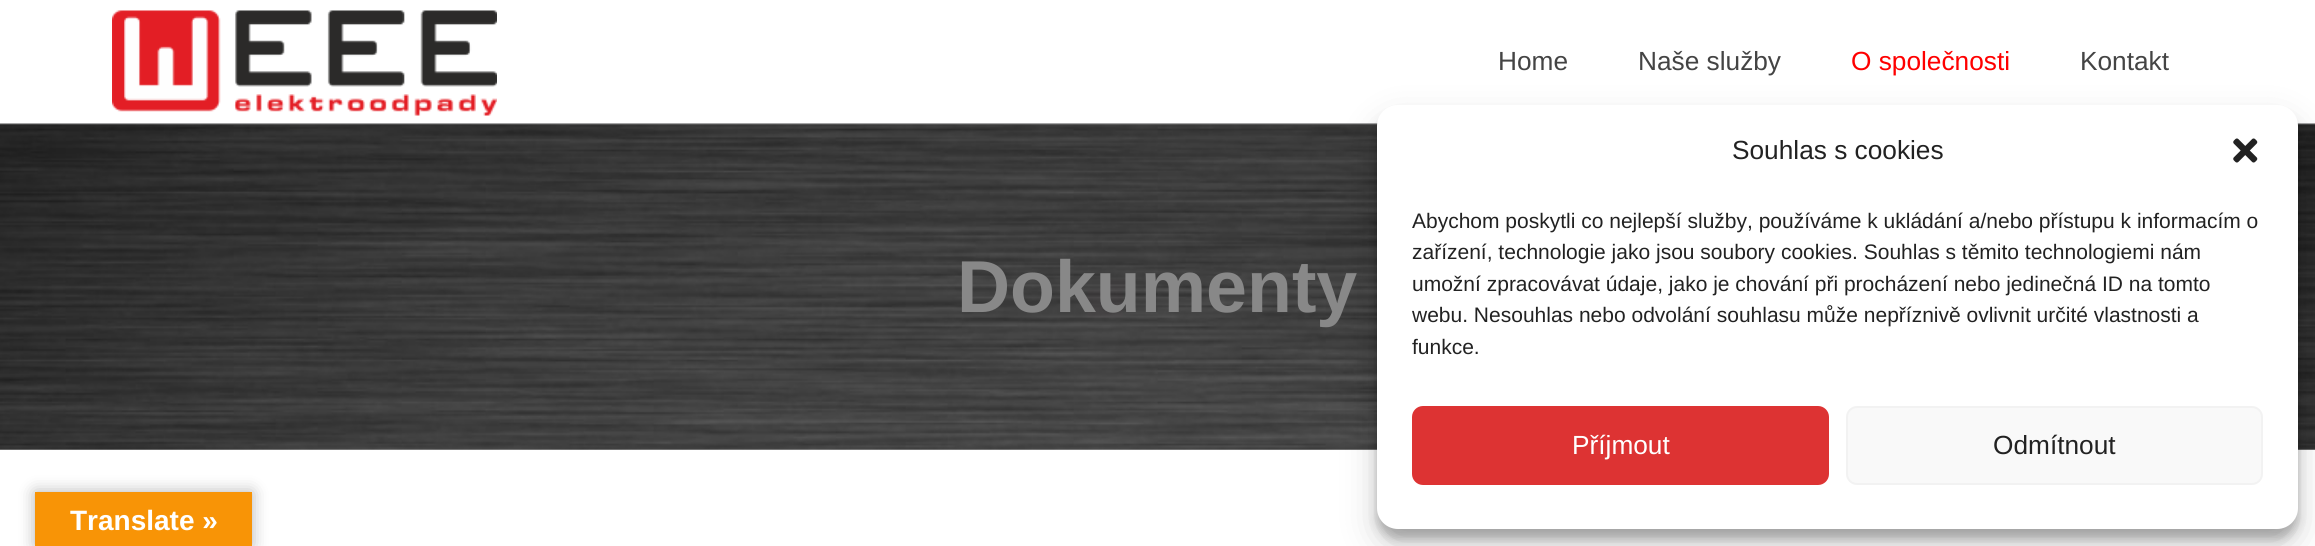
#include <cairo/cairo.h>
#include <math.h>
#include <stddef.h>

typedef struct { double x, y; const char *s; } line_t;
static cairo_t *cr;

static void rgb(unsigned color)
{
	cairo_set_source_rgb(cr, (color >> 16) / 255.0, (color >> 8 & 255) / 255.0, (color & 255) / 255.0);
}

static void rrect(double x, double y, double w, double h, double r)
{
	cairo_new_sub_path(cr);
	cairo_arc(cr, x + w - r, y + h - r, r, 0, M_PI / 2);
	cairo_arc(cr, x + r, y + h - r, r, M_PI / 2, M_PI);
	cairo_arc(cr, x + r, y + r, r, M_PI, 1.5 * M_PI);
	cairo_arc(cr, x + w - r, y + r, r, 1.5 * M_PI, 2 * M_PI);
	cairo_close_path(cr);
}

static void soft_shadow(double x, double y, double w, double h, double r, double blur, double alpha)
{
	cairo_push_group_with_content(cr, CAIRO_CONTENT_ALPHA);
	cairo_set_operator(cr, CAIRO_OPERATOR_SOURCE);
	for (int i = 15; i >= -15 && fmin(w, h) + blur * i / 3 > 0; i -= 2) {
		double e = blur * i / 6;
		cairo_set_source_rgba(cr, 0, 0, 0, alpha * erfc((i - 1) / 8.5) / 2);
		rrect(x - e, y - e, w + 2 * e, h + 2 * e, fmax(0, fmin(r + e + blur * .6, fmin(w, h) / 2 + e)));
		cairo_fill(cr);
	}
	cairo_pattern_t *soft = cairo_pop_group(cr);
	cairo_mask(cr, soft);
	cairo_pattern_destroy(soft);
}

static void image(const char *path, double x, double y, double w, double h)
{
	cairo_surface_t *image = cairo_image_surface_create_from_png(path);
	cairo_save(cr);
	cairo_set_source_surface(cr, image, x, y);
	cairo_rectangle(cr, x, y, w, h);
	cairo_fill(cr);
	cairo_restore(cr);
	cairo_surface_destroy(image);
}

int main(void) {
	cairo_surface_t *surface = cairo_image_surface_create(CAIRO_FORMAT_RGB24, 2315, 546);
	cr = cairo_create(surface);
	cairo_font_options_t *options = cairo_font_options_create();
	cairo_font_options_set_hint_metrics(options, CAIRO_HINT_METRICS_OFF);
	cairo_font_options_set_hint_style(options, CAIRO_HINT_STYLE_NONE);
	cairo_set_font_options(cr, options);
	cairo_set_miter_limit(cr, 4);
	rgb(0xffffff);
	cairo_paint(cr);
	rgb(0xa5a5a6);
	cairo_rectangle(cr, 0, 123, 2315, 2);
	cairo_fill(cr);
	image("img/1.png", 112, 10, 385, 106);
	image("img/2.png", 0, 124, 2315, 326);
	rgb(0x000000);
	soft_shadow(1377, 116, 921, 423, 21, 5, 0.23);
	soft_shadow(1377, 123, 921, 423, 21, 17.5, 0.19);
	rgb(0xffffff);
	rrect(1377, 105, 921, 424, 21);
	cairo_fill(cr);
	image("img/3.png", 2233, 138, 25, 25);
	rgb(0xdd3333);
	rrect(1413, 407, 415, 77, 10);
	cairo_fill_preserve(cr);
	cairo_stroke(cr);
	rgb(0xf9f9f9);
	rrect(1847, 407, 415, 77, 10);
	cairo_fill_preserve(cr);
	rgb(0xf2f2f2);
	cairo_stroke(cr);
	rgb(0x000000);
	soft_shadow(35, 492, 217, 54, 0, 8, 0.3);
	rgb(0xf89406);
	cairo_rectangle(cr, 35, 492, 217, 54);
	cairo_fill(cr);
	cairo_select_font_face(cr, "Liberation Sans", CAIRO_FONT_SLANT_NORMAL, CAIRO_FONT_WEIGHT_NORMAL);
	cairo_set_font_size(cr, 26.25);
	rgb(0x444444);
	cairo_move_to(cr, 1498, 70);
	cairo_show_text(cr, "Home");
	cairo_move_to(cr, 1638, 70);
	cairo_show_text(cr, "Naše služby");
	rgb(0xff0000);
	cairo_move_to(cr, 1851, 70);
	cairo_show_text(cr, "O společnosti");
	rgb(0x444444);
	cairo_move_to(cr, 2080, 70);
	cairo_show_text(cr, "Kontakt");
	cairo_select_font_face(cr, "Liberation Sans", CAIRO_FONT_SLANT_NORMAL, CAIRO_FONT_WEIGHT_BOLD);
	cairo_set_font_size(cr, 73.5);
	rgb(0x888888);
	cairo_move_to(cr, 957, 312);
	cairo_show_text(cr, "Dokumenty");
	cairo_select_font_face(cr, "Liberation Sans", CAIRO_FONT_SLANT_NORMAL, CAIRO_FONT_WEIGHT_NORMAL);
	cairo_set_font_size(cr, 26.25);
	rgb(0x222222);
	cairo_move_to(cr, 1732, 159);
	cairo_show_text(cr, "Souhlas s cookies");
	cairo_set_font_size(cr, 21);
	{
		static const line_t items[] = {
			{1412, 228, "Abychom poskytli co nejlepší služby, používáme k ukládání a/nebo přístupu k informacím o"},
			{1412, 259, "zařízení, technologie jako jsou soubory cookies. Souhlas s těmito technologiemi nám"},
			{1412, 291, "umožní zpracovávat údaje, jako je chování při procházení nebo jedinečná ID na tomto"},
			{1412, 322, "webu. Nesouhlas nebo odvolání souhlasu může nepříznivě ovlivnit určité vlastnosti a"},
			{1412, 354, "funkce."},
		};
		for (size_t i = 0; i < sizeof items / sizeof *items; i++) {
			cairo_move_to(cr, items[i].x, items[i].y);
			cairo_show_text(cr, items[i].s);
		}
	}
	cairo_set_font_size(cr, 26.25);
	rgb(0xffffff);
	cairo_move_to(cr, 1572, 454);
	cairo_show_text(cr, "Příjmout");
	rgb(0x222222);
	cairo_move_to(cr, 1993, 454);
	cairo_show_text(cr, "Odmítnout");
	cairo_select_font_face(cr, "Liberation Sans", CAIRO_FONT_SLANT_NORMAL, CAIRO_FONT_WEIGHT_BOLD);
	cairo_set_font_size(cr, 28);
	rgb(0xffffff);
	cairo_move_to(cr, 70, 530);
	cairo_show_text(cr, "Translate »");
	cairo_surface_write_to_png(surface, "page.png");
	cairo_font_options_destroy(options);
	cairo_destroy(cr);
	cairo_surface_destroy(surface);
	return 0;
}
